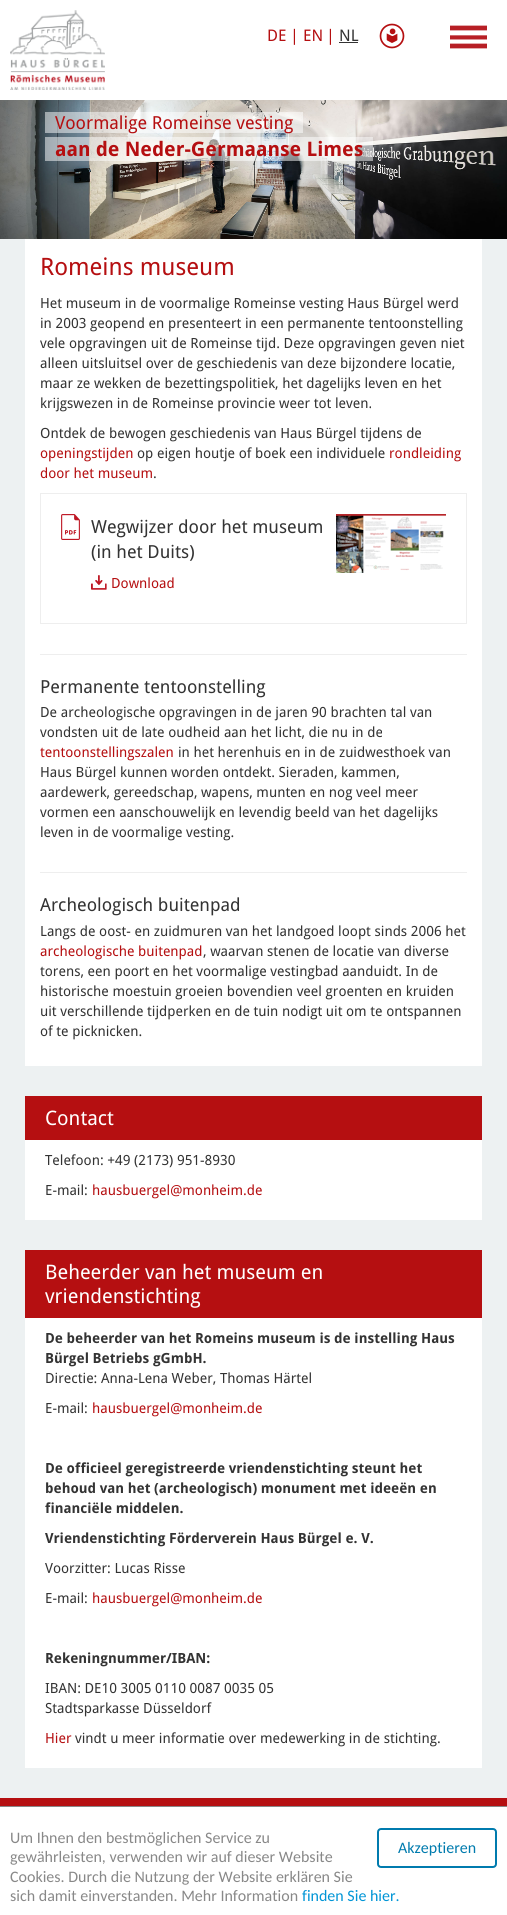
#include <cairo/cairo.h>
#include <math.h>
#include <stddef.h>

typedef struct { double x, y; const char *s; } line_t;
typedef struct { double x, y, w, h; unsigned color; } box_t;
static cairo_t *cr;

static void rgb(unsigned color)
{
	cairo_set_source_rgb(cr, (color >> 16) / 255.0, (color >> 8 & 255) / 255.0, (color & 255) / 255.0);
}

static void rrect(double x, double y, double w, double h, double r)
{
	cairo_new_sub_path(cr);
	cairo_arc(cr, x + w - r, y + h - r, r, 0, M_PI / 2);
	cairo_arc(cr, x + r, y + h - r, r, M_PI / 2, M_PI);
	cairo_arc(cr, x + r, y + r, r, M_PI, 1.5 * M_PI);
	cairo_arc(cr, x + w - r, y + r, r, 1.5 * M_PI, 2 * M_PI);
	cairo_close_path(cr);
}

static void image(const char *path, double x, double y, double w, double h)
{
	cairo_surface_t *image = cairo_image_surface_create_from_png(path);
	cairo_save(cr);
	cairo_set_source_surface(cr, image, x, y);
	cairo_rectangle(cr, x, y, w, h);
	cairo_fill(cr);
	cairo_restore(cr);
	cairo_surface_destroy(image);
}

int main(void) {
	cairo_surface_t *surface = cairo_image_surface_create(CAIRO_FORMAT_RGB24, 507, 1915);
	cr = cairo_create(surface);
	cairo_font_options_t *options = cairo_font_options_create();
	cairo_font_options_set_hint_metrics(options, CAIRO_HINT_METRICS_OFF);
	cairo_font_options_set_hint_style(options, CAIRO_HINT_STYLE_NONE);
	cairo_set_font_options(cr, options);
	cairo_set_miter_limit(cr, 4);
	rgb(0xedf1f2);
	cairo_paint(cr);
	rgb(0xffffff);
	cairo_rectangle(cr, 0, 0, 507, 100);
	cairo_fill(cr);
	image("img/1.png", 10, 10, 95, 80);
	rgb(0x333333);
	cairo_rectangle(cr, 339, 42, 19, 1);
	cairo_fill(cr);
	image("img/2.png", 379, 23, 26, 26);
	image("img/3.png", 450, 25, 37, 24);
	image("img/4.png", 0, 100, 507, 139);
	cairo_set_source_rgba(cr, 1, 1, 1, 0.5);
	cairo_rectangle(cr, 45, 112, 258, 21);
	cairo_fill(cr);
	cairo_rectangle(cr, 45, 137, 328, 24);
	cairo_fill(cr);
	rgb(0xffffff);
	cairo_rectangle(cr, 25, 239, 457, 827);
	cairo_fill(cr);
	cairo_rectangle(cr, 40.5, 493.5, 426, 130);
	rgb(0xeeeeee);
	cairo_set_line_width(cr, 1);
	cairo_stroke(cr);
	image("img/5.png", 61, 514, 19, 26);
	image("img/6.png", 91, 575, 16, 15);
	image("img/7.png", 336, 514, 110, 59);
	{
		static const box_t items[] = {
			{40, 654, 427, 1, 0xeeeeee},
			{40, 872, 427, 1, 0xeeeeee},
			{25, 1096, 457, 44, 0xb50f11},
			{25, 1140, 457, 80, 0xffffff},
			{25, 1250, 457, 68, 0xb50f11},
			{25, 1318, 457, 450, 0xffffff},
			{0, 1798, 507, 8, 0xb50f11},
			{0, 1807, 507, 108, 0xffffff},
			{0, 1806, 507, 1, 0x888888},
		};
		for (size_t i = 0; i < sizeof items / sizeof *items; i++) {
			rgb(items[i].color);
			cairo_rectangle(cr, items[i].x, items[i].y, items[i].w, items[i].h);
			cairo_fill(cr);
		}
	}
	rrect(378, 1829, 118, 38, 3);
	rgb(0x007bae);
	cairo_set_line_width(cr, 2);
	cairo_stroke(cr);
	cairo_select_font_face(cr, "Droid Sans", CAIRO_FONT_SLANT_NORMAL, CAIRO_FONT_WEIGHT_NORMAL);
	cairo_set_font_size(cr, 16);
	rgb(0xb50f11);
	{
		static const line_t items[] = {
			{267, 41, "DE"},
			{290, 41, "|"},
			{303, 41, "EN"},
			{326, 41, "|"},
		};
		for (size_t i = 0; i < sizeof items / sizeof *items; i++) {
			cairo_move_to(cr, items[i].x, items[i].y);
			cairo_show_text(cr, items[i].s);
		}
	}
	rgb(0x333333);
	cairo_move_to(cr, 339, 41);
	cairo_show_text(cr, "NL");
	cairo_set_font_size(cr, 18);
	rgb(0xb50f11);
	cairo_move_to(cr, 55, 129);
	cairo_show_text(cr, "Voormalige Romeinse vesting");
	cairo_select_font_face(cr, "Droid Sans", CAIRO_FONT_SLANT_NORMAL, CAIRO_FONT_WEIGHT_BOLD);
	cairo_set_font_size(cr, 20);
	cairo_move_to(cr, 55, 156);
	cairo_show_text(cr, "aan de Neder-Germaanse Limes");
	cairo_select_font_face(cr, "Droid Sans", CAIRO_FONT_SLANT_NORMAL, CAIRO_FONT_WEIGHT_NORMAL);
	cairo_set_font_size(cr, 24);
	cairo_move_to(cr, 40, 275);
	cairo_show_text(cr, "Romeins museum");
	cairo_set_font_size(cr, 14);
	rgb(0x333333);
	{
		static const line_t items[] = {
			{40, 308, "Het museum in de voormalige Romeinse vesting Haus Bürgel werd"},
			{40, 328, "in 2003 geopend en presenteert in een permanente tentoonstelling"},
			{40, 348, "vele opgravingen uit de Romeinse tijd. Deze opgravingen geven niet"},
			{40, 368, "alleen uitsluitsel over de geschiedenis van deze bijzondere locatie,"},
			{40, 388, "maar ze wekken de bezettingspolitiek, het dagelijks leven en het"},
			{40, 408, "krijgswezen in de Romeinse provincie weer tot leven."},
			{40, 438, "Ontdek de bewogen geschiedenis van Haus Bürgel tijdens de"},
		};
		for (size_t i = 0; i < sizeof items / sizeof *items; i++) {
			cairo_move_to(cr, items[i].x, items[i].y);
			cairo_show_text(cr, items[i].s);
		}
	}
	rgb(0xb50f11);
	cairo_move_to(cr, 40, 458);
	cairo_show_text(cr, "openingstijden");
	rgb(0x333333);
	cairo_move_to(cr, 137, 458);
	cairo_show_text(cr, "op eigen houtje of boek een individuele");
	rgb(0xb50f11);
	cairo_move_to(cr, 389, 458);
	cairo_show_text(cr, "rondleiding");
	cairo_move_to(cr, 40, 478);
	cairo_show_text(cr, "door het museum");
	rgb(0x333333);
	cairo_move_to(cr, 153, 478);
	cairo_show_text(cr, ".");
	cairo_set_font_size(cr, 18);
	cairo_move_to(cr, 91, 533);
	cairo_show_text(cr, "Wegwijzer door het museum");
	cairo_move_to(cr, 91, 558);
	cairo_show_text(cr, "(in het Duits)");
	cairo_set_font_size(cr, 14);
	rgb(0xb50f11);
	cairo_move_to(cr, 111, 588);
	cairo_show_text(cr, "Download");
	cairo_set_font_size(cr, 18);
	rgb(0x333333);
	cairo_move_to(cr, 40, 693);
	cairo_show_text(cr, "Permanente tentoonstelling");
	cairo_set_font_size(cr, 14);
	cairo_move_to(cr, 40, 717);
	cairo_show_text(cr, "De archeologische opgravingen in de jaren 90 brachten tal van");
	cairo_move_to(cr, 40, 737);
	cairo_show_text(cr, "vondsten uit de late oudheid aan het licht, die nu in de");
	rgb(0xb50f11);
	cairo_move_to(cr, 40, 757);
	cairo_show_text(cr, "tentoonstellingszalen");
	rgb(0x333333);
	{
		static const line_t items[] = {
			{178, 757, "in het herenhuis en in de zuidwesthoek van"},
			{40, 777, "Haus Bürgel kunnen worden ontdekt. Sieraden, kammen,"},
			{40, 797, "aardewerk, gereedschap, wapens, munten en nog veel meer"},
			{40, 817, "vormen een aanschouwelijk en levendig beeld van het dagelijks"},
			{40, 837, "leven in de voormalige vesting."},
		};
		for (size_t i = 0; i < sizeof items / sizeof *items; i++) {
			cairo_move_to(cr, items[i].x, items[i].y);
			cairo_show_text(cr, items[i].s);
		}
	}
	cairo_set_font_size(cr, 18);
	cairo_move_to(cr, 40, 911);
	cairo_show_text(cr, "Archeologisch buitenpad");
	cairo_set_font_size(cr, 14);
	cairo_move_to(cr, 40, 936);
	cairo_show_text(cr, "Langs de oost- en zuidmuren van het landgoed loopt sinds 2006 het");
	rgb(0xb50f11);
	cairo_move_to(cr, 40, 956);
	cairo_show_text(cr, "archeologische buitenpad");
	rgb(0x333333);
	{
		static const line_t items[] = {
			{203, 956, ", waarvan stenen de locatie van diverse"},
			{40, 976, "torens, een poort en het voormalige vestingbad aanduidt. In de"},
			{40, 996, "historische moestuin groeien bovendien veel groenten en kruiden"},
			{40, 1016, "uit verschillende tijdperken en de tuin nodigt uit om te ontspannen"},
			{40, 1036, "of te picknicken."},
		};
		for (size_t i = 0; i < sizeof items / sizeof *items; i++) {
			cairo_move_to(cr, items[i].x, items[i].y);
			cairo_show_text(cr, items[i].s);
		}
	}
	cairo_set_font_size(cr, 20);
	rgb(0xffffff);
	cairo_move_to(cr, 45, 1125);
	cairo_show_text(cr, "Contact");
	cairo_set_font_size(cr, 14);
	rgb(0x333333);
	cairo_move_to(cr, 45, 1165);
	cairo_show_text(cr, "Telefoon: +49 (2173) 951-8930");
	cairo_move_to(cr, 45, 1195);
	cairo_show_text(cr, "E-mail:");
	rgb(0xb50f11);
	cairo_move_to(cr, 92, 1195);
	cairo_show_text(cr, "hausbuergel@monheim.de");
	cairo_set_font_size(cr, 20);
	rgb(0xffffff);
	cairo_move_to(cr, 45, 1279);
	cairo_show_text(cr, "Beheerder van het museum en");
	cairo_move_to(cr, 45, 1303);
	cairo_show_text(cr, "vriendenstichting");
	cairo_select_font_face(cr, "Droid Sans", CAIRO_FONT_SLANT_NORMAL, CAIRO_FONT_WEIGHT_BOLD);
	cairo_set_font_size(cr, 14);
	rgb(0x333333);
	cairo_move_to(cr, 45, 1343);
	cairo_show_text(cr, "De beheerder van het Romeins museum is de instelling Haus");
	cairo_move_to(cr, 45, 1363);
	cairo_show_text(cr, "Bürgel Betriebs gGmbH.");
	cairo_select_font_face(cr, "Droid Sans", CAIRO_FONT_SLANT_NORMAL, CAIRO_FONT_WEIGHT_NORMAL);
	cairo_move_to(cr, 45, 1383);
	cairo_show_text(cr, "Directie: Anna-Lena Weber, Thomas Härtel");
	cairo_move_to(cr, 45, 1413);
	cairo_show_text(cr, "E-mail:");
	rgb(0xb50f11);
	cairo_move_to(cr, 92, 1413);
	cairo_show_text(cr, "hausbuergel@monheim.de");
	cairo_select_font_face(cr, "Droid Sans", CAIRO_FONT_SLANT_NORMAL, CAIRO_FONT_WEIGHT_BOLD);
	rgb(0x333333);
	{
		static const line_t items[] = {
			{45, 1473, "De officieel geregistreerde vriendenstichting steunt het"},
			{45, 1493, "behoud van het (archeologisch) monument met ideeën en"},
			{45, 1513, "financiële middelen."},
			{45, 1543, "Vriendenstichting Förderverein Haus Bürgel e. V."},
		};
		for (size_t i = 0; i < sizeof items / sizeof *items; i++) {
			cairo_move_to(cr, items[i].x, items[i].y);
			cairo_show_text(cr, items[i].s);
		}
	}
	cairo_select_font_face(cr, "Droid Sans", CAIRO_FONT_SLANT_NORMAL, CAIRO_FONT_WEIGHT_NORMAL);
	cairo_move_to(cr, 45, 1573);
	cairo_show_text(cr, "Voorzitter: Lucas Risse");
	cairo_move_to(cr, 45, 1603);
	cairo_show_text(cr, "E-mail:");
	rgb(0xb50f11);
	cairo_move_to(cr, 92, 1603);
	cairo_show_text(cr, "hausbuergel@monheim.de");
	cairo_select_font_face(cr, "Droid Sans", CAIRO_FONT_SLANT_NORMAL, CAIRO_FONT_WEIGHT_BOLD);
	rgb(0x333333);
	cairo_move_to(cr, 45, 1663);
	cairo_show_text(cr, "Rekeningnummer/IBAN:");
	cairo_select_font_face(cr, "Droid Sans", CAIRO_FONT_SLANT_NORMAL, CAIRO_FONT_WEIGHT_NORMAL);
	cairo_move_to(cr, 45, 1693);
	cairo_show_text(cr, "IBAN: DE10 3005 0110 0087 0035 05");
	cairo_move_to(cr, 45, 1713);
	cairo_show_text(cr, "Stadtsparkasse Düsseldorf");
	rgb(0xb50f11);
	cairo_move_to(cr, 45, 1743);
	cairo_show_text(cr, "Hier");
	rgb(0x333333);
	cairo_move_to(cr, 75, 1743);
	cairo_show_text(cr, "vindt u meer informatie over medewerking in de stichting.");
	cairo_select_font_face(cr, "Carlito", CAIRO_FONT_SLANT_NORMAL, CAIRO_FONT_WEIGHT_NORMAL);
	cairo_set_font_size(cr, 16);
	rgb(0x888888);
	{
		static const line_t items[] = {
			{10, 1843, "Um Ihnen den bestmöglichen Service zu"},
			{10, 1862, "gewährleisten, verwenden wir auf dieser Website"},
			{10, 1882, "Cookies. Durch die Nutzung der Website erklären Sie"},
			{10, 1901, "sich damit einverstanden. Mehr Information"},
		};
		for (size_t i = 0; i < sizeof items / sizeof *items; i++) {
			cairo_move_to(cr, items[i].x, items[i].y);
			cairo_show_text(cr, items[i].s);
		}
	}
	rgb(0x0095d6);
	cairo_move_to(cr, 302, 1901);
	cairo_show_text(cr, "finden Sie hier.");
	rgb(0x007bae);
	cairo_move_to(cr, 398, 1853);
	cairo_show_text(cr, "Akzeptieren");
	cairo_surface_write_to_png(surface, "page.png");
	cairo_font_options_destroy(options);
	cairo_destroy(cr);
	cairo_surface_destroy(surface);
	return 0;
}
